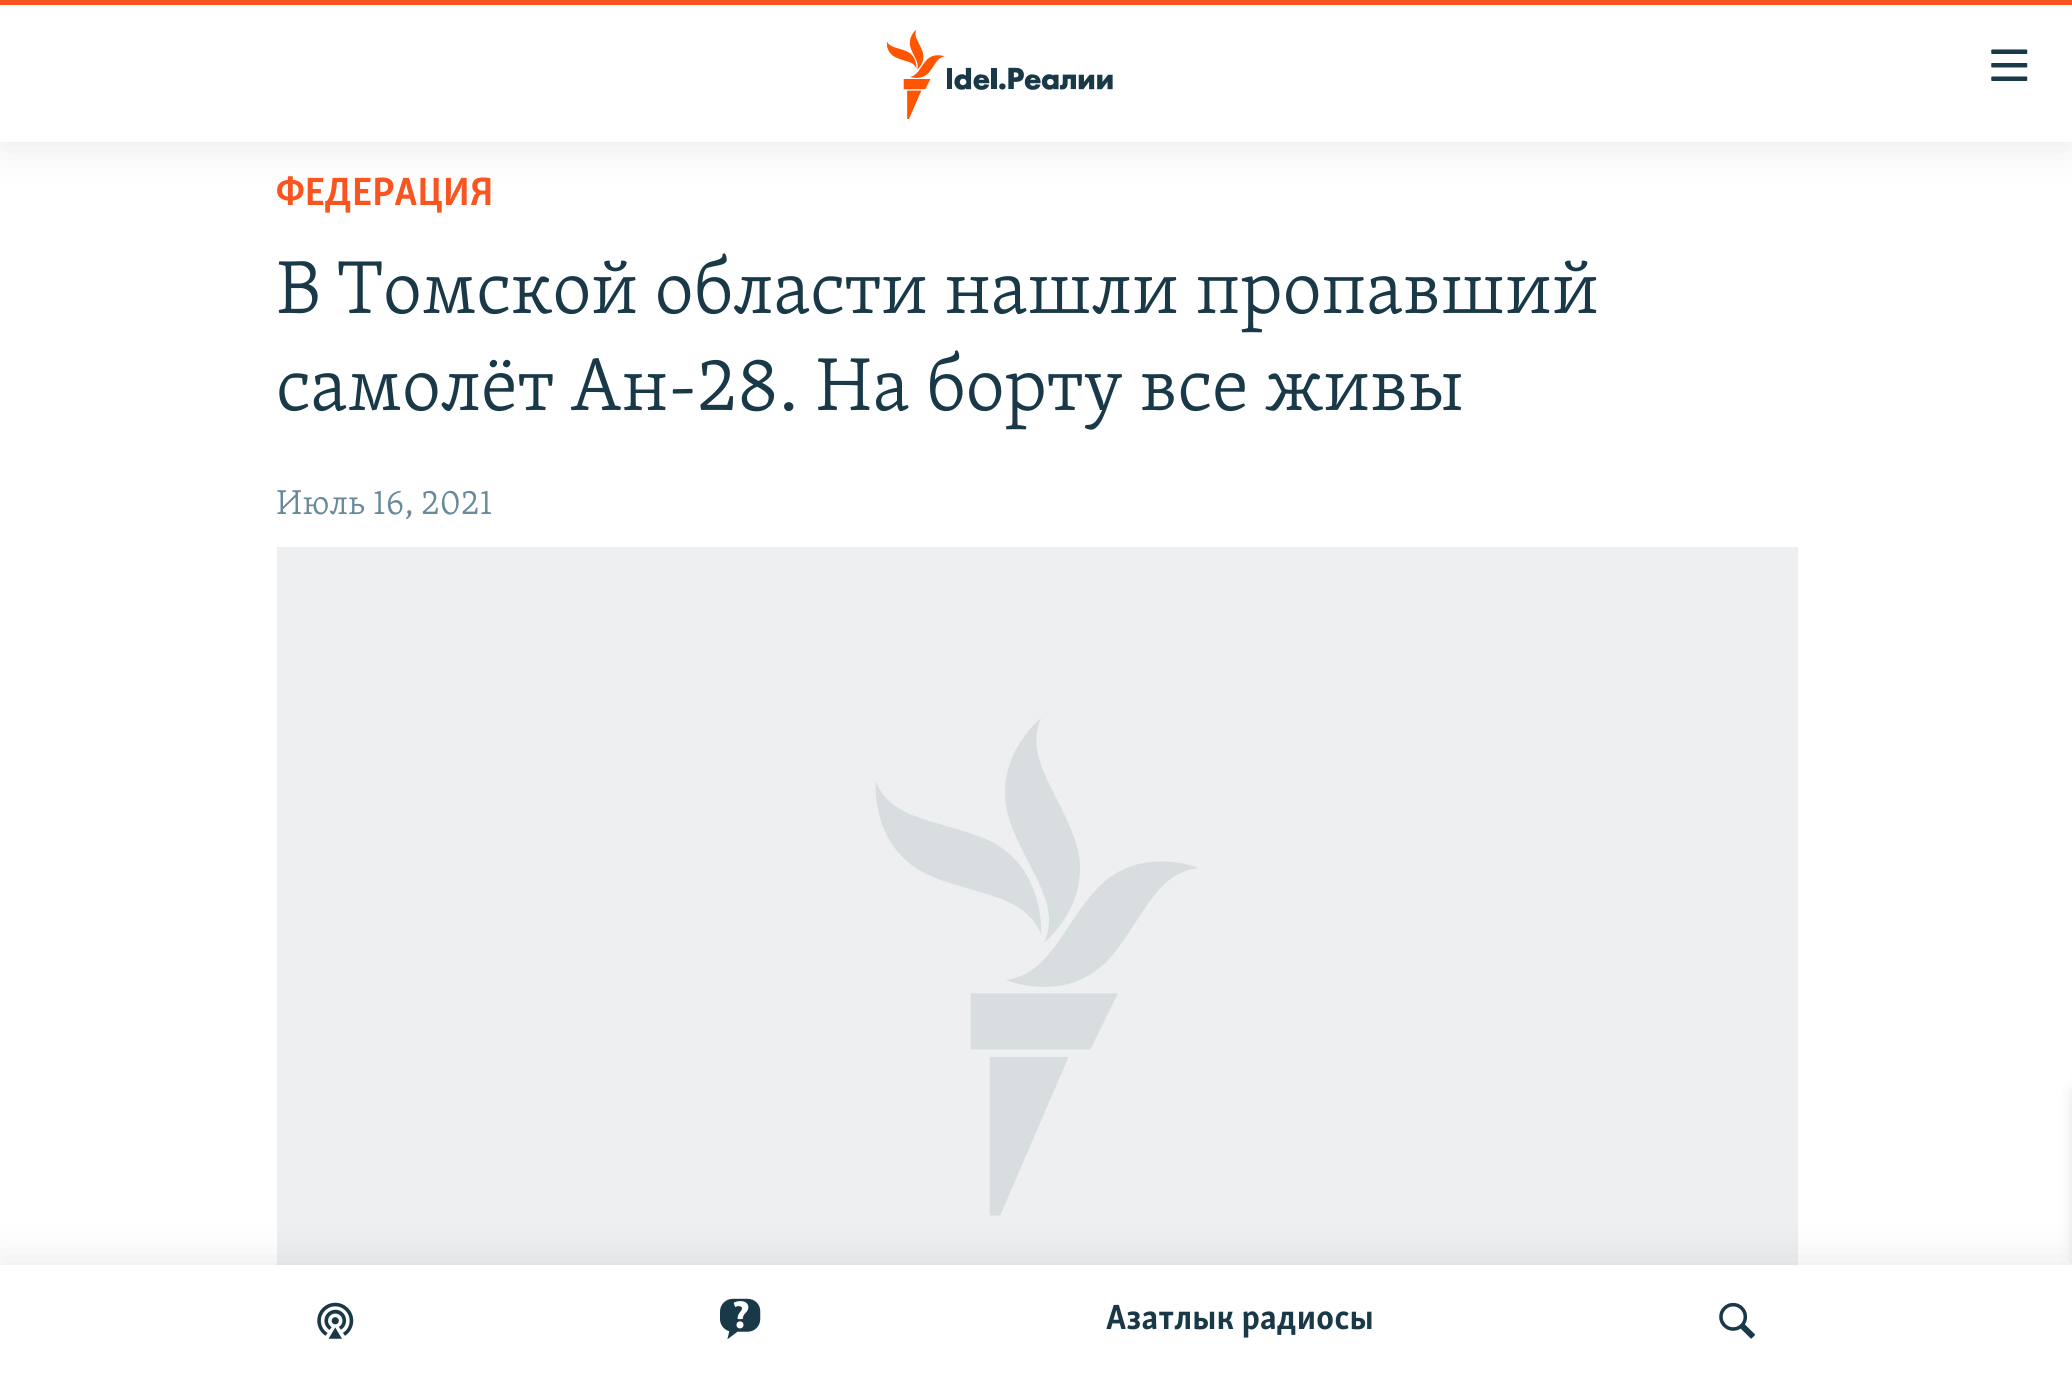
#include <cairo/cairo.h>
#include <math.h>
#include <stddef.h>

static cairo_t *cr;

static void rgb(unsigned color)
{
	cairo_set_source_rgb(cr, (color >> 16) / 255.0, (color >> 8 & 255) / 255.0, (color & 255) / 255.0);
}

static void rrect(double x, double y, double w, double h, double r)
{
	cairo_new_sub_path(cr);
	cairo_arc(cr, x + w - r, y + h - r, r, 0, M_PI / 2);
	cairo_arc(cr, x + r, y + h - r, r, M_PI / 2, M_PI);
	cairo_arc(cr, x + r, y + r, r, M_PI, 1.5 * M_PI);
	cairo_arc(cr, x + w - r, y + r, r, 1.5 * M_PI, 2 * M_PI);
	cairo_close_path(cr);
}

static void soft_shadow(double x, double y, double w, double h, double r, double blur, double alpha)
{
	cairo_push_group_with_content(cr, CAIRO_CONTENT_ALPHA);
	cairo_set_operator(cr, CAIRO_OPERATOR_SOURCE);
	for (int i = 15; i >= -15 && fmin(w, h) + blur * i / 3 > 0; i -= 2) {
		double e = blur * i / 6;
		cairo_set_source_rgba(cr, 0, 0, 0, alpha * erfc((i - 1) / 8.5) / 2);
		rrect(x - e, y - e, w + 2 * e, h + 2 * e, fmax(0, fmin(r + e + blur * .6, fmin(w, h) / 2 + e)));
		cairo_fill(cr);
	}
	cairo_pattern_t *soft = cairo_pop_group(cr);
	cairo_mask(cr, soft);
	cairo_pattern_destroy(soft);
}

static void image(const char *path, double x, double y, double w, double h)
{
	cairo_surface_t *image = cairo_image_surface_create_from_png(path);
	cairo_save(cr);
	cairo_set_source_surface(cr, image, x, y);
	cairo_rectangle(cr, x, y, w, h);
	cairo_fill(cr);
	cairo_restore(cr);
	cairo_surface_destroy(image);
}

int main(void) {
	cairo_surface_t *surface = cairo_image_surface_create(CAIRO_FORMAT_RGB24, 2072, 1375);
	cr = cairo_create(surface);
	cairo_font_options_t *options = cairo_font_options_create();
	cairo_font_options_set_hint_metrics(options, CAIRO_HINT_METRICS_OFF);
	cairo_font_options_set_hint_style(options, CAIRO_HINT_STYLE_NONE);
	cairo_set_font_options(cr, options);
	cairo_set_miter_limit(cr, 4);
	rgb(0xffffff);
	cairo_paint(cr);
	rgb(0xedeff0);
	cairo_rectangle(cr, 277, 547, 1521, 718);
	cairo_fill(cr);
	image("img/1.png", 875, 718, 323, 498);
	rgb(0x000000);
	soft_shadow(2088, 1089, 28, 176, 11, 11, 0.85);
	soft_shadow(0, 0, 2072, 142, 0, 22.5, 0.1);
	rgb(0xffffff);
	cairo_rectangle(cr, 0, 5, 2072, 137);
	cairo_fill(cr);
	rgb(0xfa5420);
	cairo_rectangle(cr, 0, 0, 2072, 5);
	cairo_fill(cr);
	image("img/2.png", 887, 29, 226, 90);
	image("img/3.png", 1991, 49, 37, 32);
	rgb(0x000000);
	soft_shadow(0, 1265, 2072, 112, 0, 22.5, 0.1);
	rgb(0xffffff);
	cairo_rectangle(cr, 0, 1265, 2072, 110);
	cairo_fill(cr);
	image("img/4.png", 317, 1302, 37, 37);
	image("img/5.png", 720, 1298, 41, 42);
	image("img/6.png", 1719, 1302, 36, 37);
	cairo_select_font_face(cr, "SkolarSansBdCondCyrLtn", CAIRO_FONT_SLANT_NORMAL, CAIRO_FONT_WEIGHT_BOLD);
	cairo_set_font_size(cr, 40.5);
	rgb(0xfa5420);
	cairo_move_to(cr, 276, 205);
	cairo_show_text(cr, "ФЕДЕРАЦИЯ");
	cairo_select_font_face(cr, "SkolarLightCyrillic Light", CAIRO_FONT_SLANT_NORMAL, CAIRO_FONT_WEIGHT_NORMAL);
	cairo_set_font_size(cr, 77);
	rgb(0x1a3948);
	cairo_move_to(cr, 276, 313);
	cairo_show_text(cr, "В Томской области нашли пропавший");
	cairo_move_to(cr, 276, 410);
	cairo_show_text(cr, "самолёт Ан-28. На борту все живы");
	cairo_set_font_size(cr, 35.5);
	rgb(0x678a9b);
	cairo_move_to(cr, 276, 514);
	cairo_show_text(cr, "Июль 16, 2021");
	cairo_select_font_face(cr, "SkolarSansBdCondCyrLtn", CAIRO_FONT_SLANT_NORMAL, CAIRO_FONT_WEIGHT_BOLD);
	cairo_set_font_size(cr, 36);
	rgb(0x1a3948);
	cairo_move_to(cr, 1106, 1329);
	cairo_show_text(cr, "Aзатлык радиосы");
	cairo_surface_write_to_png(surface, "page.png");
	cairo_font_options_destroy(options);
	cairo_destroy(cr);
	cairo_surface_destroy(surface);
	return 0;
}
